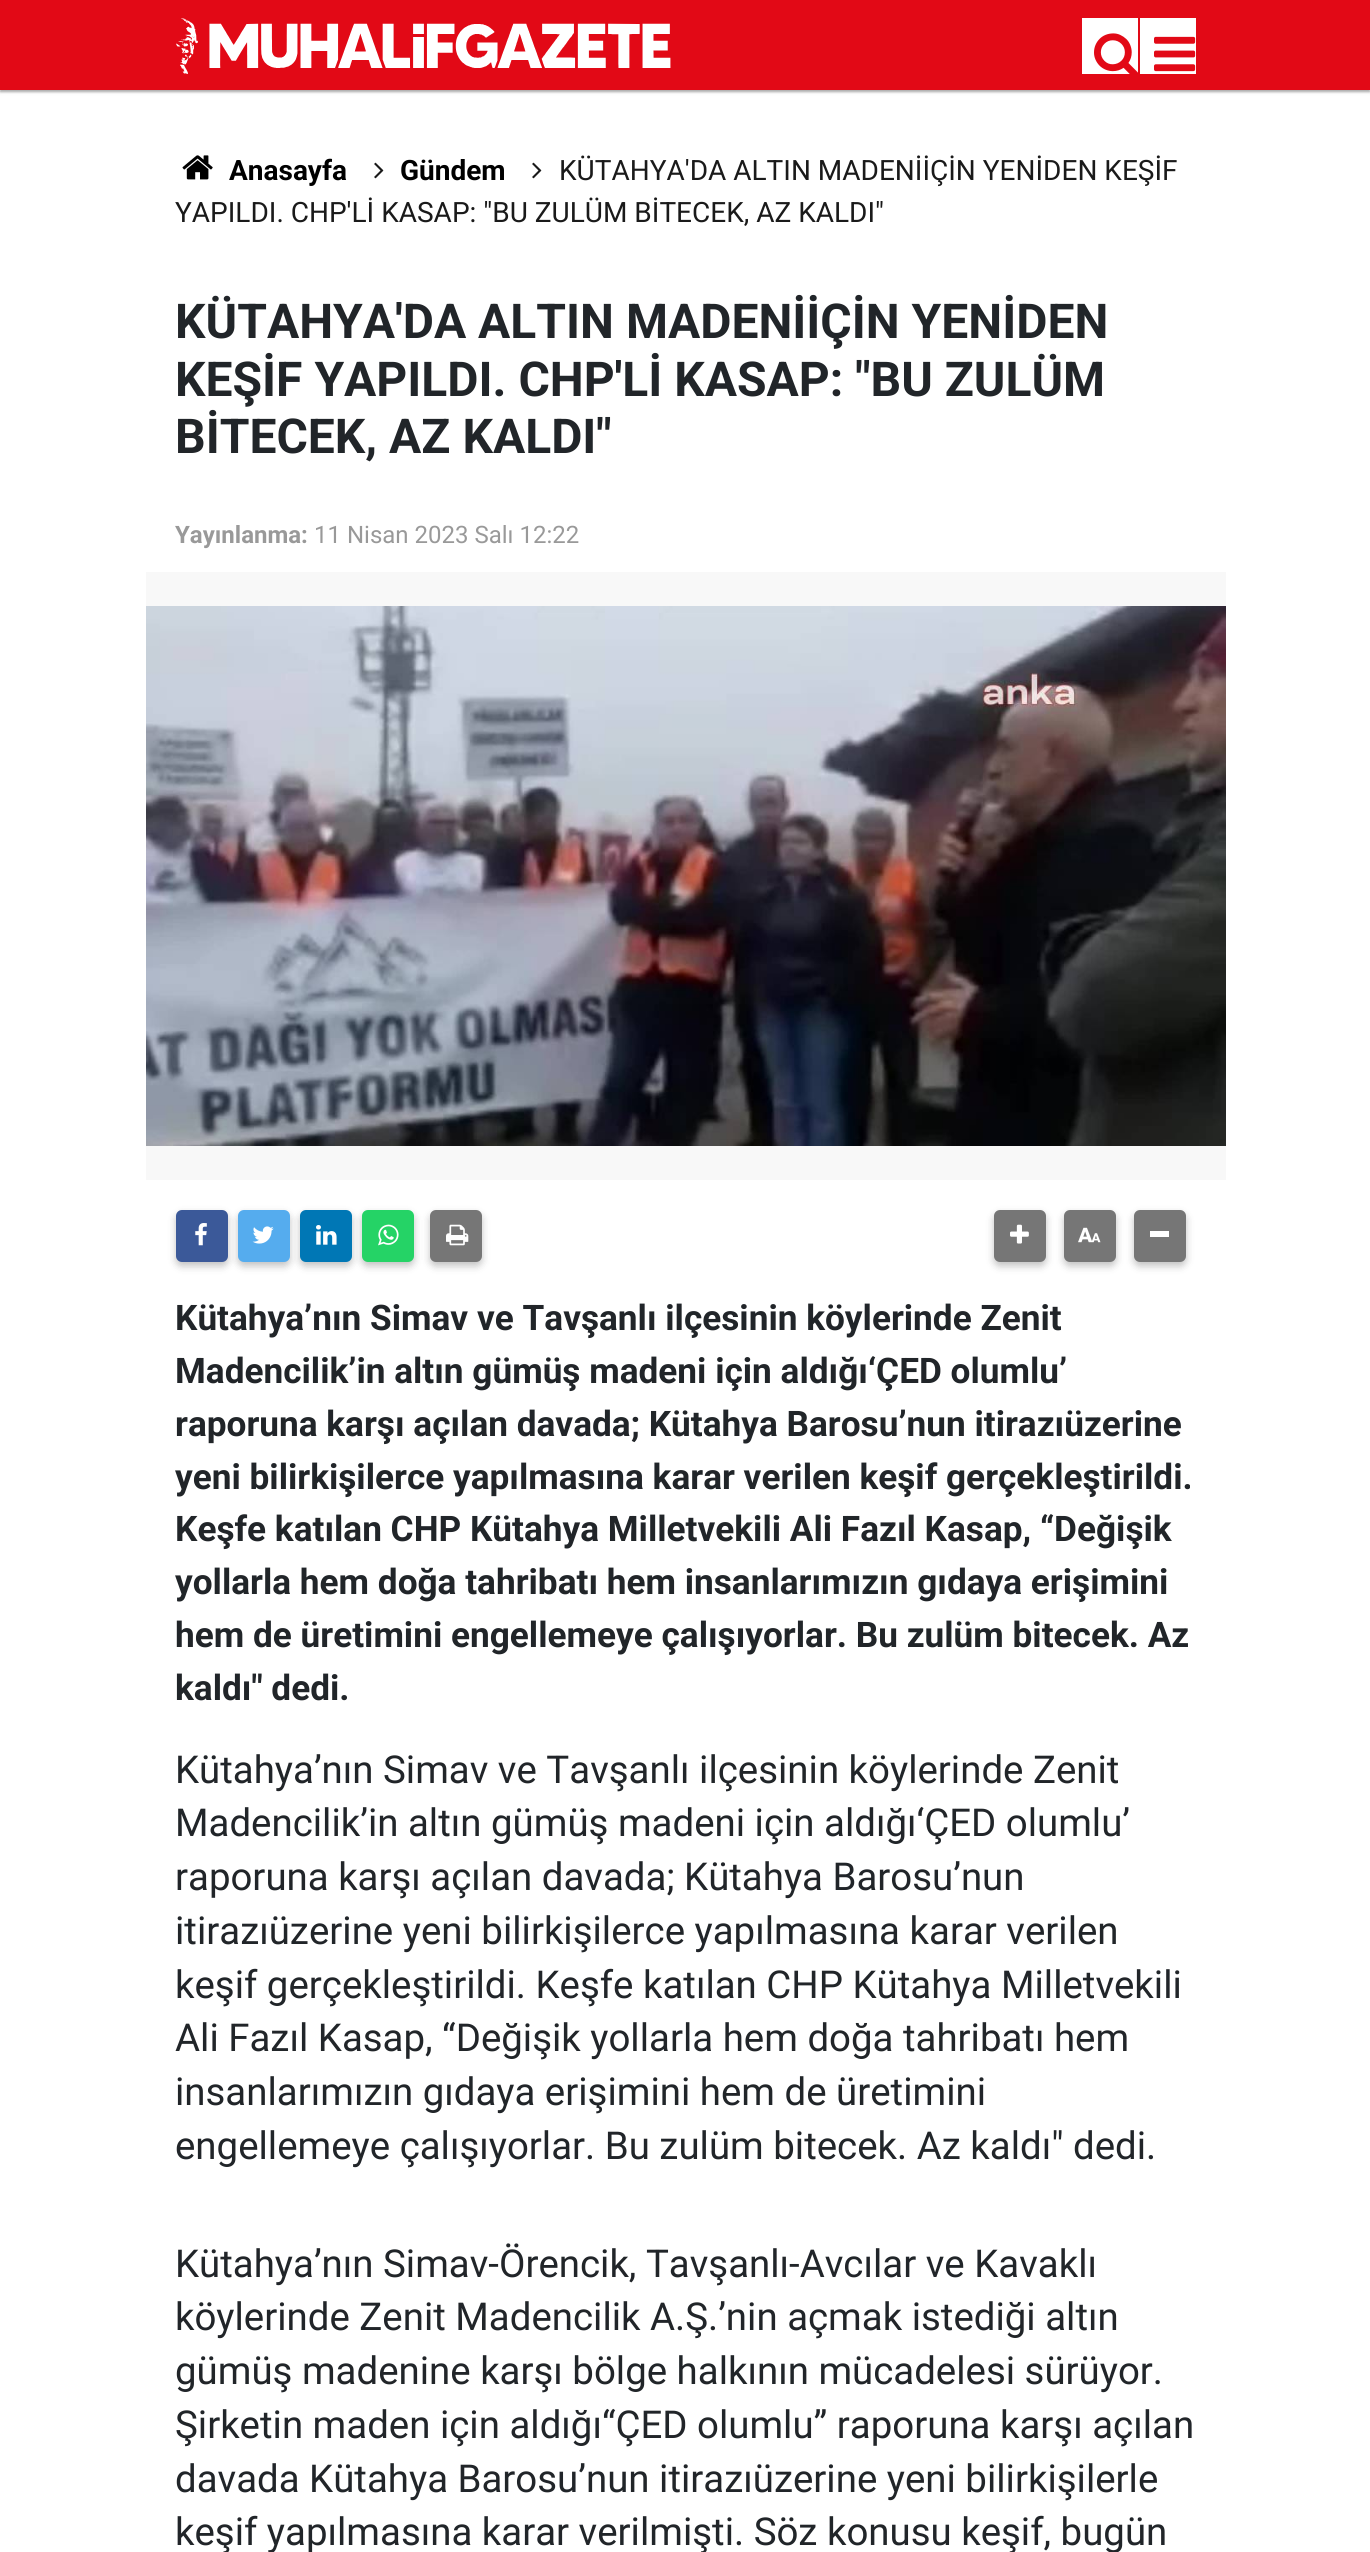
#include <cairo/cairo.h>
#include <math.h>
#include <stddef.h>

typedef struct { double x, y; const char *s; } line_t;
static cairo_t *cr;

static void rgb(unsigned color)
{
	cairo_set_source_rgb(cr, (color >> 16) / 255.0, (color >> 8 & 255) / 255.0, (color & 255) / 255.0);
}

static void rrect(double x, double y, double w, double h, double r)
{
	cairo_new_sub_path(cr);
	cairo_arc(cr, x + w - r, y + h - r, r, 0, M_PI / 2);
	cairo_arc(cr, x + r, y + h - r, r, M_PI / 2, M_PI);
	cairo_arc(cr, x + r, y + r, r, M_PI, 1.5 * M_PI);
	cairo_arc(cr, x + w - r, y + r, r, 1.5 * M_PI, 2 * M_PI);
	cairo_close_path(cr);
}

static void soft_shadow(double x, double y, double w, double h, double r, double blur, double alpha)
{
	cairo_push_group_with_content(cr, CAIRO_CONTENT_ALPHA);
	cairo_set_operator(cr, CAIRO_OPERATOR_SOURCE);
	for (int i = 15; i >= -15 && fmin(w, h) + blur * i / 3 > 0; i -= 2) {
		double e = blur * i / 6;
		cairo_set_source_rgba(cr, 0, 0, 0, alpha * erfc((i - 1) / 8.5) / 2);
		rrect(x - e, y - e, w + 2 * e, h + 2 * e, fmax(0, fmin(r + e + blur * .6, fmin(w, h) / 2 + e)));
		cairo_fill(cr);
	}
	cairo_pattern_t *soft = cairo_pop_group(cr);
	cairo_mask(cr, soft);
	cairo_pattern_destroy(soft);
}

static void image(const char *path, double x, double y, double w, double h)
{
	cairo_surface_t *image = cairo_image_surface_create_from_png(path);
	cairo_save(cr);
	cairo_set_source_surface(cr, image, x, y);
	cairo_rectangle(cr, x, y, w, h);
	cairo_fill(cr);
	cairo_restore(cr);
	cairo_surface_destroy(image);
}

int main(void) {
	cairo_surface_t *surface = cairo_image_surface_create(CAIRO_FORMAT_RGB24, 1370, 2552);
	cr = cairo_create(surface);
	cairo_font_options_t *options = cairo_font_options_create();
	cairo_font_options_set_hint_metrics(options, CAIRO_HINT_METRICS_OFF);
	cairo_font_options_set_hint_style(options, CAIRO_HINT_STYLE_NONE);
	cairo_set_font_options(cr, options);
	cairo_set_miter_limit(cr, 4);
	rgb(0xffffff);
	cairo_paint(cr);
	rgb(0x000000);
	soft_shadow(0, 2, 1370, 90, 0, 1, 0.24);
	soft_shadow(0, 2, 1370, 90, 0, 2, 0.12);
	rgb(0xe20916);
	cairo_rectangle(cr, 0, 0, 1370, 90);
	cairo_fill(cr);
	image("img/1.png", 176, 18, 495, 56);
	rgb(0xffffff);
	cairo_rectangle(cr, 1082, 18, 56, 56);
	cairo_fill(cr);
	image("img/2.png", 1094, 33, 44, 41);
	cairo_rectangle(cr, 1140, 18, 56, 56);
	cairo_fill(cr);
	image("img/3.png", 1154, 36, 42, 36);
	image("img/4.png", 182, 155, 31, 25);
	image("img/5.png", 374, 162, 10, 17);
	image("img/5.png", 532, 162, 10, 17);
	rgb(0xf8f8f8);
	cairo_rectangle(cr, 146, 572, 1080, 608);
	cairo_fill(cr);
	image("img/6.png", 146, 606, 1080, 540);
	rgb(0x323232);
	soft_shadow(176, 1214, 52, 52, 6, 4, 0.3);
	rgb(0x3b5999);
	rrect(176, 1210, 52, 52, 6);
	cairo_fill(cr);
	image("img/7.png", 195, 1223, 12, 23);
	rgb(0x323232);
	soft_shadow(238, 1214, 52, 52, 6, 4, 0.3);
	rgb(0x55acee);
	rrect(238, 1210, 52, 52, 6);
	cairo_fill(cr);
	image("img/8.png", 252, 1226, 22, 18);
	rgb(0x323232);
	soft_shadow(300, 1214, 52, 52, 6, 4, 0.3);
	rgb(0x0077b5);
	rrect(300, 1210, 52, 52, 6);
	cairo_fill(cr);
	image("img/9.png", 316, 1225, 21, 20);
	rgb(0x323232);
	soft_shadow(362, 1214, 52, 52, 6, 4, 0.3);
	rgb(0x25d366);
	rrect(362, 1210, 52, 52, 6);
	cairo_fill(cr);
	image("img/10.png", 378, 1224, 21, 22);
	rgb(0x323232);
	soft_shadow(430, 1214, 52, 52, 6, 4, 0.3);
	rgb(0x767676);
	rrect(430, 1210, 52, 52, 6);
	cairo_fill(cr);
	image("img/11.png", 446, 1224, 23, 22);
	rgb(0x323232);
	soft_shadow(994, 1214, 52, 52, 6, 4, 0.3);
	rgb(0x767676);
	rrect(994, 1210, 52, 52, 6);
	cairo_fill(cr);
	image("img/12.png", 1010, 1224, 19, 20);
	rgb(0x323232);
	soft_shadow(1064, 1214, 52, 52, 6, 4, 0.3);
	rgb(0x767676);
	rrect(1064, 1210, 52, 52, 6);
	cairo_fill(cr);
	image("img/13.png", 1078, 1227, 23, 16);
	rgb(0x323232);
	soft_shadow(1134, 1214, 52, 52, 6, 4, 0.3);
	rgb(0x767676);
	rrect(1134, 1210, 52, 52, 6);
	cairo_fill(cr);
	rgb(0xffffff);
	cairo_rectangle(cr, 1150, 1231, 19, 6);
	cairo_fill(cr);
	cairo_select_font_face(cr, "Roboto", CAIRO_FONT_SLANT_NORMAL, CAIRO_FONT_WEIGHT_BOLD);
	cairo_set_font_size(cr, 28);
	rgb(0x000000);
	cairo_move_to(cr, 229, 180);
	cairo_show_text(cr, "Anasayfa");
	cairo_move_to(cr, 400, 180);
	cairo_show_text(cr, "Gündem");
	cairo_select_font_face(cr, "Roboto", CAIRO_FONT_SLANT_NORMAL, CAIRO_FONT_WEIGHT_NORMAL);
	rgb(0x1a1a1a);
	cairo_move_to(cr, 559, 180);
	cairo_show_text(cr, "KÜTAHYA'DA ALTIN MADENİİÇİN YENİDEN KEŞİF");
	cairo_move_to(cr, 175, 222);
	cairo_show_text(cr, "YAPILDI. CHP'Lİ KASAP: \"BU ZULÜM BİTECEK, AZ KALDI\"");
	cairo_select_font_face(cr, "Roboto", CAIRO_FONT_SLANT_NORMAL, CAIRO_FONT_WEIGHT_BOLD);
	cairo_set_font_size(cr, 48);
	rgb(0x212529);
	{
		static const line_t items[] = {
			{175, 338, "KÜTAHYA'DA ALTIN MADENİİÇİN YENİDEN"},
			{175, 396, "KEŞİF YAPILDI. CHP'Lİ KASAP: \"BU ZULÜM"},
			{175, 453, "BİTECEK, AZ KALDI\""},
		};
		for (size_t i = 0; i < sizeof items / sizeof *items; i++) {
			cairo_move_to(cr, items[i].x, items[i].y);
			cairo_show_text(cr, items[i].s);
		}
	}
	cairo_set_font_size(cr, 24);
	rgb(0x999999);
	cairo_move_to(cr, 175, 543);
	cairo_show_text(cr, "Yayınlanma:");
	cairo_select_font_face(cr, "Roboto", CAIRO_FONT_SLANT_NORMAL, CAIRO_FONT_WEIGHT_NORMAL);
	cairo_move_to(cr, 314, 543);
	cairo_show_text(cr, "11 Nisan 2023 Salı 12:22");
	cairo_select_font_face(cr, "Roboto", CAIRO_FONT_SLANT_NORMAL, CAIRO_FONT_WEIGHT_BOLD);
	cairo_set_font_size(cr, 35.2);
	rgb(0x212529);
	{
		static const line_t items[] = {
			{175, 1330, "Kütahya’nın Simav ve Tavşanlı ilçesinin köylerinde Zenit"},
			{175, 1383, "Madencilik’in altın gümüş madeni için aldığı‘ÇED olumlu’"},
			{175, 1436, "raporuna karşı açılan davada; Kütahya Barosu’nun itirazıüzerine"},
			{175, 1489, "yeni bilirkişilerce yapılmasına karar verilen keşif gerçekleştirildi."},
			{175, 1541, "Keşfe katılan CHP Kütahya Milletvekili Ali Fazıl Kasap, “Değişik"},
			{175, 1594, "yollarla hem doğa tahribatı hem insanlarımızın gıdaya erişimini"},
			{175, 1647, "hem de üretimini engellemeye çalışıyorlar. Bu zulüm bitecek. Az"},
			{175, 1700, "kaldı\" dedi."},
		};
		for (size_t i = 0; i < sizeof items / sizeof *items; i++) {
			cairo_move_to(cr, items[i].x, items[i].y);
			cairo_show_text(cr, items[i].s);
		}
	}
	cairo_select_font_face(cr, "Roboto", CAIRO_FONT_SLANT_NORMAL, CAIRO_FONT_WEIGHT_NORMAL);
	cairo_set_font_size(cr, 38.4);
	{
		static const line_t items[] = {
			{175, 1783, "Kütahya’nın Simav ve Tavşanlı ilçesinin köylerinde Zenit"},
			{175, 1836, "Madencilik’in altın gümüş madeni için aldığı‘ÇED olumlu’"},
			{175, 1890, "raporuna karşı açılan davada; Kütahya Barosu’nun"},
			{175, 1944, "itirazıüzerine yeni bilirkişilerce yapılmasına karar verilen"},
			{175, 1998, "keşif gerçekleştirildi. Keşfe katılan CHP Kütahya Milletvekili"},
			{175, 2051, "Ali Fazıl Kasap, “Değişik yollarla hem doğa tahribatı hem"},
			{175, 2105, "insanlarımızın gıdaya erişimini hem de üretimini"},
			{175, 2159, "engellemeye çalışıyorlar. Bu zulüm bitecek. Az kaldı\" dedi."},
			{175, 2277, "Kütahya’nın Simav-Örencik, Tavşanlı-Avcılar ve Kavaklı"},
			{175, 2330, "köylerinde Zenit Madencilik A.Ş.’nin açmak istediği altın"},
			{175, 2384, "gümüş madenine karşı bölge halkının mücadelesi sürüyor."},
			{175, 2438, "Şirketin maden için aldığı“ÇED olumlu” raporuna karşı açılan"},
			{175, 2492, "davada Kütahya Barosu’nun itirazıüzerine yeni bilirkişilerle"},
			{175, 2545, "keşif yapılmasına karar verilmişti. Söz konusu keşif, bugün"},
		};
		for (size_t i = 0; i < sizeof items / sizeof *items; i++) {
			cairo_move_to(cr, items[i].x, items[i].y);
			cairo_show_text(cr, items[i].s);
		}
	}
	cairo_surface_write_to_png(surface, "page.png");
	cairo_font_options_destroy(options);
	cairo_destroy(cr);
	cairo_surface_destroy(surface);
	return 0;
}
